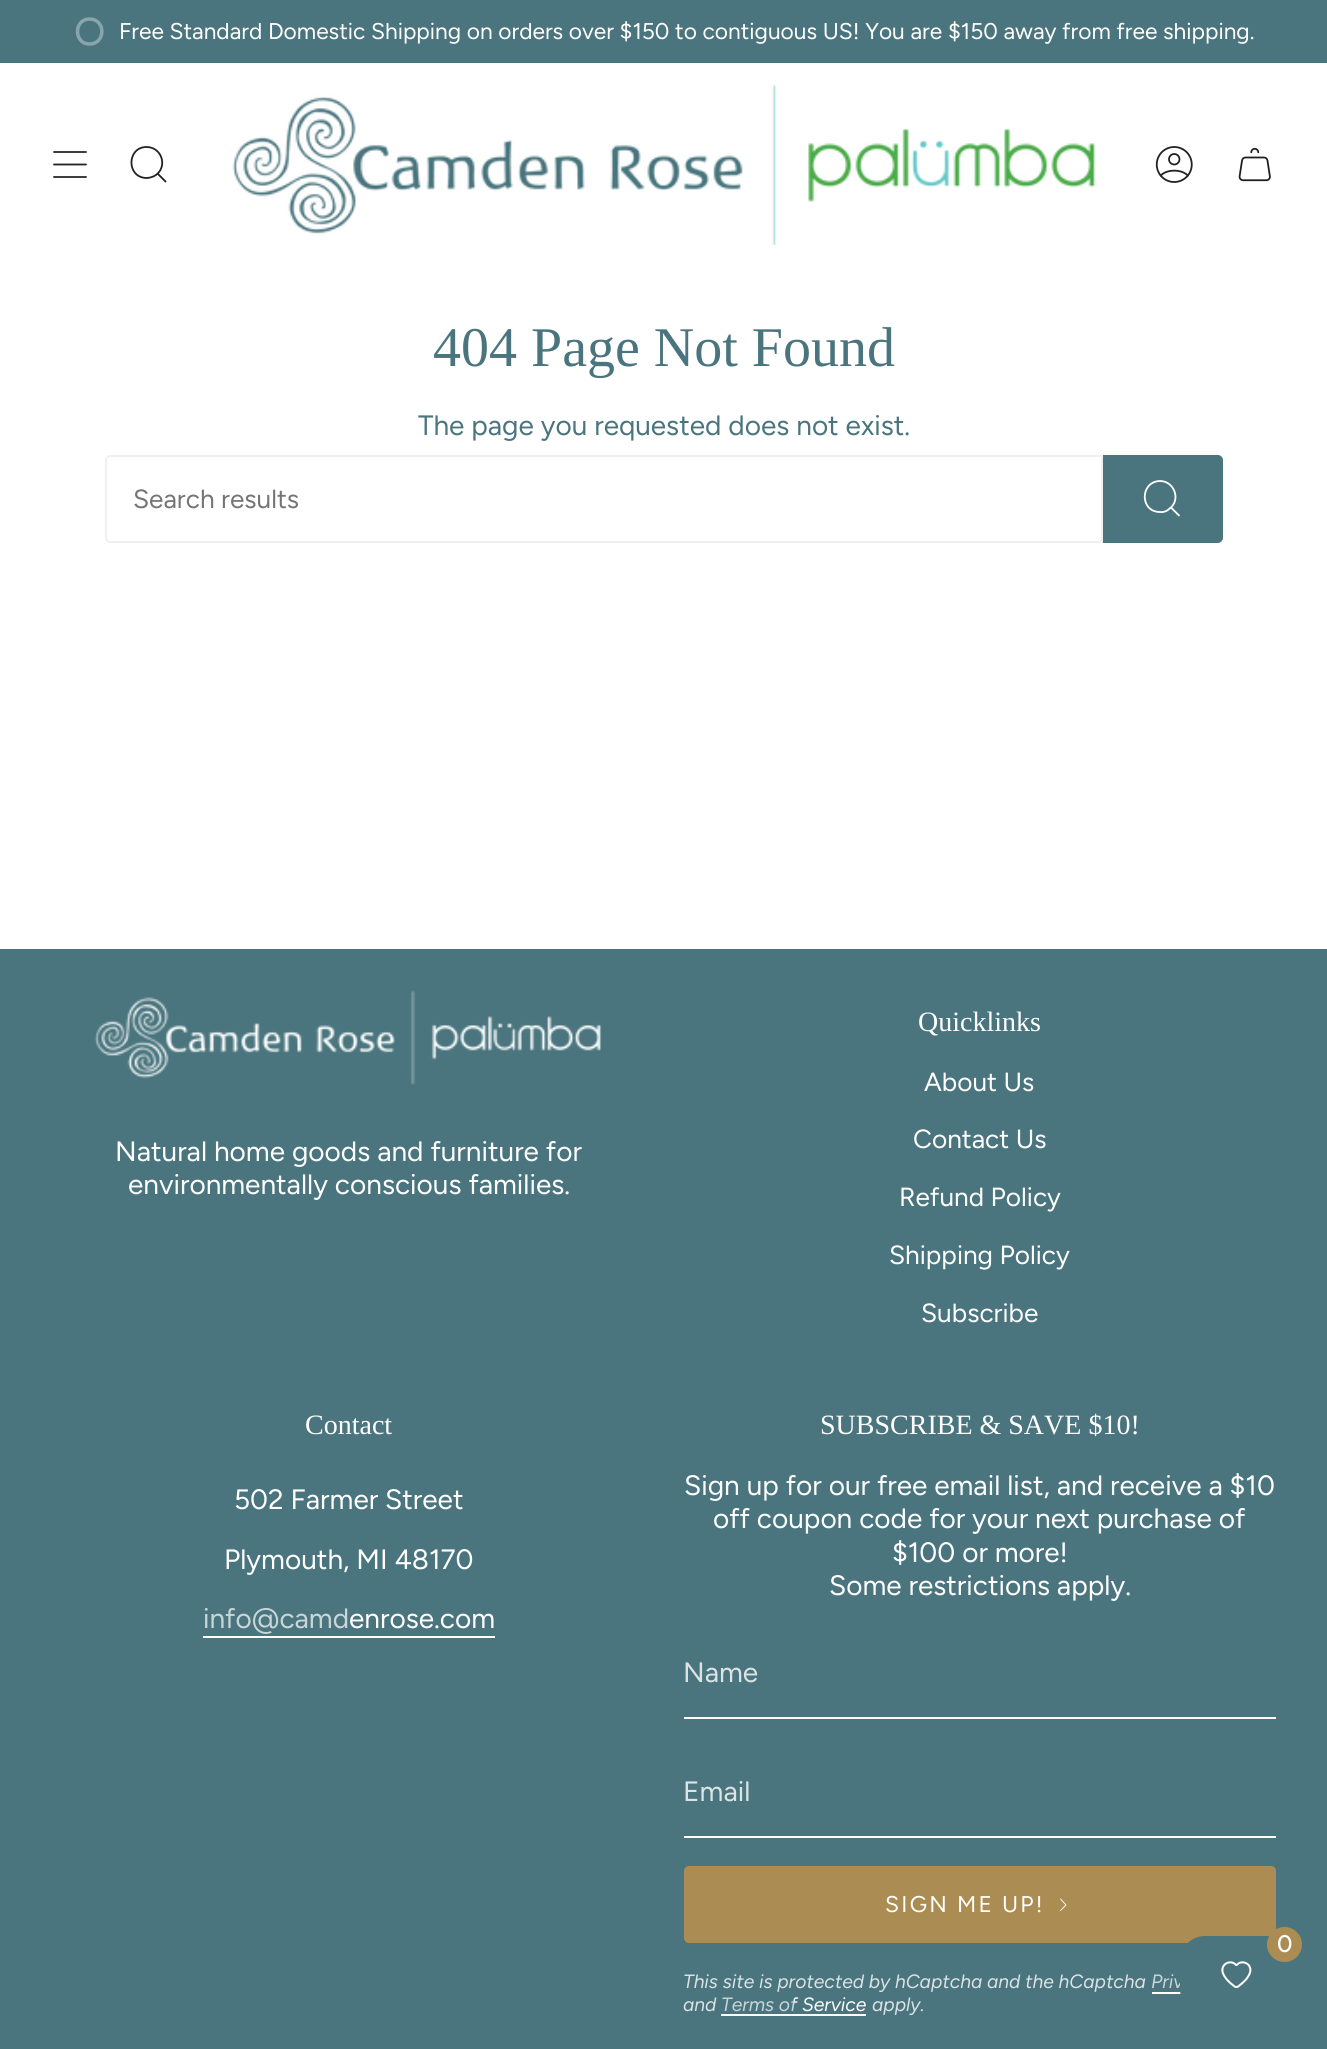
#include <cairo/cairo.h>
#include <math.h>
#include <stddef.h>

typedef struct { double x, y; const char *s; } line_t;
typedef struct { double x, y, w, h; unsigned color; } box_t;
static cairo_t *cr;

static void rgb(unsigned color)
{
	cairo_set_source_rgb(cr, (color >> 16) / 255.0, (color >> 8 & 255) / 255.0, (color & 255) / 255.0);
}

static void tracked(double x, double y, const char *s, double letter, double word)
{
	cairo_move_to(cr, x, y);
	while (*s) {
		char ch[5] = {0};
		int n = 0;
		do ch[n++] = *s++; while ((*s & 0xC0) == 0x80);
		cairo_show_text(cr, ch);
		cairo_rel_move_to(cr, letter + word * (*ch == ' '), 0);
	}
}

static void rrect(double x, double y, double w, double h, double r)
{
	cairo_new_sub_path(cr);
	cairo_arc(cr, x + w - r, y + h - r, r, 0, M_PI / 2);
	cairo_arc(cr, x + r, y + h - r, r, M_PI / 2, M_PI);
	cairo_arc(cr, x + r, y + r, r, M_PI, 1.5 * M_PI);
	cairo_arc(cr, x + w - r, y + r, r, 1.5 * M_PI, 2 * M_PI);
	cairo_close_path(cr);
}

static void image(const char *path, double x, double y, double w, double h)
{
	cairo_surface_t *image = cairo_image_surface_create_from_png(path);
	cairo_save(cr);
	cairo_set_source_surface(cr, image, x, y);
	cairo_rectangle(cr, x, y, w, h);
	cairo_fill(cr);
	cairo_restore(cr);
	cairo_surface_destroy(image);
}

int main(void) {
	cairo_surface_t *surface = cairo_image_surface_create(CAIRO_FORMAT_RGB24, 1327, 2049);
	cr = cairo_create(surface);
	cairo_font_options_t *options = cairo_font_options_create();
	cairo_font_options_set_hint_metrics(options, CAIRO_HINT_METRICS_OFF);
	cairo_font_options_set_hint_style(options, CAIRO_HINT_STYLE_NONE);
	cairo_set_font_options(cr, options);
	cairo_set_miter_limit(cr, 4);
	cairo_pattern_t *gradient;
	rgb(0xffffff);
	cairo_paint(cr);
	rgb(0x4a757e);
	cairo_rectangle(cr, 0, 0, 1327, 63);
	cairo_fill(cr);
	cairo_new_path(cr);
	cairo_move_to(cr, 89.5, 19);
	cairo_curve_to(cr, 73.5, 19, 73.5, 44, 89.5, 44);
	cairo_curve_to(cr, 106, 44, 106, 19, 89.5, 19);
	cairo_close_path(cr);
	rgb(0x89a5ab);
	cairo_set_line_width(cr, 3.5);
	cairo_stroke(cr);
	cairo_new_path(cr);
	cairo_move_to(cr, 54, 152);
	cairo_line_to(cr, 86, 152);
	cairo_move_to(cr, 54, 164.5);
	cairo_line_to(cr, 86, 164.5);
	cairo_move_to(cr, 54, 177);
	cairo_line_to(cr, 86, 177);
	rgb(0x212121);
	cairo_set_line_width(cr, 1.8);
	cairo_set_line_cap(cr, CAIRO_LINE_CAP_ROUND);
	cairo_set_line_join(cr, CAIRO_LINE_JOIN_ROUND);
	cairo_stroke(cr);
	cairo_new_path(cr);
	cairo_move_to(cr, 146.5, 147);
	cairo_curve_to(cr, 161.5, 147, 168, 166, 156, 175);
	cairo_curve_to(cr, 153, 177, 149.5, 178, 146, 178);
	cairo_curve_to(cr, 126, 177, 127, 147, 146.5, 147);
	cairo_close_path(cr);
	cairo_move_to(cr, 157.5, 173.5);
	cairo_line_to(cr, 166, 182);
	cairo_set_line_cap(cr, CAIRO_LINE_CAP_BUTT);
	cairo_set_line_join(cr, CAIRO_LINE_JOIN_MITER);
	cairo_stroke(cr);
	image("img/1.png", 232, 84, 864, 162);
	image("img/2.png", 1155, 146, 38, 37);
	image("img/3.png", 1238, 147, 33, 35);
	cairo_new_path(cr);
	cairo_move_to(cr, 110, 456);
	cairo_line_to(cr, 1102, 456);
	cairo_line_to(cr, 1102, 542);
	cairo_line_to(cr, 110, 542);
	cairo_curve_to(cr, 108, 542, 106, 540, 106, 538);
	cairo_line_to(cr, 106, 460);
	cairo_curve_to(cr, 106, 458, 108, 456, 110, 456);
	cairo_close_path(cr);
	rgb(0xf0f0f0);
	cairo_set_line_width(cr, 2);
	cairo_stroke(cr);
	rgb(0x4a757e);
	cairo_new_path(cr);
	cairo_move_to(cr, 1104, 456);
	cairo_line_to(cr, 1218, 456);
	cairo_curve_to(cr, 1220, 456, 1222, 458, 1222, 460);
	cairo_line_to(cr, 1222, 538);
	cairo_curve_to(cr, 1222, 540, 1220, 542, 1218, 542);
	cairo_line_to(cr, 1104, 542);
	cairo_close_path(cr);
	cairo_fill_preserve(cr);
	cairo_stroke(cr);
	cairo_new_path(cr);
	cairo_move_to(cr, 1160, 481);
	cairo_curve_to(cr, 1174.5, 481, 1181.5, 500.5, 1169, 509);
	cairo_curve_to(cr, 1166.5, 511.5, 1163, 512.5, 1159.5, 512);
	cairo_curve_to(cr, 1139.5, 511.5, 1140, 481.5, 1160, 481);
	cairo_close_path(cr);
	cairo_move_to(cr, 1171, 507.5);
	cairo_line_to(cr, 1179.5, 516);
	rgb(0xffffff);
	cairo_set_line_width(cr, 1.8);
	cairo_stroke(cr);
	rgb(0x4a757e);
	cairo_rectangle(cr, 0, 949, 1327, 1100);
	cairo_fill(cr);
	image("img/4.png", 94, 990, 508, 95);
	{
		static const box_t items[] = {
			{203, 1636, 292, 2, 0xffffff},
			{684, 1717, 592, 2, 0xffffff},
			{684, 1836, 592, 2, 0xffffff},
		};
		for (size_t i = 0; i < sizeof items / sizeof *items; i++) {
			rgb(items[i].color);
			cairo_rectangle(cr, items[i].x, items[i].y, items[i].w, items[i].h);
			cairo_fill(cr);
		}
	}
	rgb(0xab8c52);
	rrect(685, 1867, 590, 75, 4);
	cairo_fill_preserve(cr);
	cairo_set_line_width(cr, 2);
	cairo_stroke(cr);
	cairo_new_path(cr);
	cairo_move_to(cr, 1060.5, 1899);
	cairo_line_to(cr, 1066, 1905);
	cairo_line_to(cr, 1060.5, 1910.5);
	rgb(0xffffff);
	cairo_set_line_width(cr, 0.9);
	cairo_set_line_cap(cr, CAIRO_LINE_CAP_ROUND);
	cairo_set_line_join(cr, CAIRO_LINE_JOIN_ROUND);
	cairo_stroke(cr);
	cairo_rectangle(cr, 1152, 1992, 29, 2);
	cairo_fill(cr);
	cairo_rectangle(cr, 721, 2014, 145, 2);
	cairo_fill(cr);
	cairo_select_font_face(cr, "Figtree", CAIRO_FONT_SLANT_NORMAL, CAIRO_FONT_WEIGHT_NORMAL);
	cairo_set_font_size(cr, 22.75);
	cairo_move_to(cr, 119, 39);
	cairo_show_text(cr, "Free Standard Domestic Shipping on orders over $150 to contiguous US! You are");
	cairo_move_to(cr, 948, 39);
	cairo_show_text(cr, "$150 away from free shipping.");
	cairo_select_font_face(cr, "Liberation Serif", CAIRO_FONT_SLANT_NORMAL, CAIRO_FONT_WEIGHT_NORMAL);
	cairo_set_font_size(cr, 56);
	rgb(0x4a757e);
	cairo_move_to(cr, 433, 366);
	cairo_show_text(cr, "404 Page Not Found");
	cairo_select_font_face(cr, "Figtree", CAIRO_FONT_SLANT_NORMAL, CAIRO_FONT_WEIGHT_NORMAL);
	cairo_set_font_size(cr, 28);
	cairo_move_to(cr, 418, 435);
	cairo_show_text(cr, "The page you requested does not exist.");
	cairo_set_font_size(cr, 26.25);
	rgb(0x757575);
	cairo_move_to(cr, 133, 508);
	cairo_show_text(cr, "Search results");
	cairo_set_font_size(cr, 28);
	rgb(0xffffff);
	cairo_move_to(cr, 115, 1161);
	cairo_show_text(cr, "Natural home goods and furniture for");
	cairo_move_to(cr, 128, 1194);
	cairo_show_text(cr, "environmentally conscious families.");
	cairo_select_font_face(cr, "Liberation Serif", CAIRO_FONT_SLANT_NORMAL, CAIRO_FONT_WEIGHT_NORMAL);
	cairo_move_to(cr, 918, 1031);
	cairo_show_text(cr, "Quicklinks");
	cairo_select_font_face(cr, "Figtree", CAIRO_FONT_SLANT_NORMAL, CAIRO_FONT_WEIGHT_NORMAL);
	cairo_set_font_size(cr, 26.25);
	{
		static const line_t items[] = {
			{924, 1091, "About Us"},
			{913, 1148, "Contact Us"},
			{899, 1206, "Refund Policy"},
			{889, 1264, "Shipping Policy"},
			{921, 1322, "Subscribe"},
		};
		for (size_t i = 0; i < sizeof items / sizeof *items; i++) {
			cairo_move_to(cr, items[i].x, items[i].y);
			cairo_show_text(cr, items[i].s);
		}
	}
	cairo_select_font_face(cr, "Liberation Serif", CAIRO_FONT_SLANT_NORMAL, CAIRO_FONT_WEIGHT_NORMAL);
	cairo_set_font_size(cr, 28);
	cairo_move_to(cr, 305, 1434);
	cairo_show_text(cr, "Contact");
	cairo_select_font_face(cr, "Figtree", CAIRO_FONT_SLANT_NORMAL, CAIRO_FONT_WEIGHT_NORMAL);
	cairo_move_to(cr, 234, 1509);
	cairo_show_text(cr, "502 Farmer Street");
	cairo_move_to(cr, 224, 1569);
	cairo_show_text(cr, "Plymouth, MI 48170");
	gradient = cairo_pattern_create_linear(203, 1620, 495, 1620);
	cairo_pattern_add_color_stop_rgba(gradient, 0, 0.788, 0.839, 0.847, 1);
	cairo_pattern_add_color_stop_rgba(gradient, 0.5, 0.788, 0.839, 0.847, 1);
	cairo_pattern_add_color_stop_rgba(gradient, 0.5, 1, 1, 1, 1);
	cairo_pattern_add_color_stop_rgba(gradient, 1, 1, 1, 1, 1);
	cairo_set_source(cr, gradient);
	cairo_pattern_destroy(gradient);
	cairo_move_to(cr, 203, 1628);
	cairo_show_text(cr, "info@camdenrose.com");
	cairo_select_font_face(cr, "Liberation Serif", CAIRO_FONT_SLANT_NORMAL, CAIRO_FONT_WEIGHT_NORMAL);
	rgb(0xffffff);
	cairo_move_to(cr, 820, 1434);
	cairo_show_text(cr, "SUBSCRIBE & SAVE $10!");
	cairo_select_font_face(cr, "Figtree", CAIRO_FONT_SLANT_NORMAL, CAIRO_FONT_WEIGHT_NORMAL);
	{
		static const line_t items[] = {
			{684, 1495, "Sign up for our free email list, and receive a $10"},
			{713, 1528, "off coupon code for your next purchase of"},
			{892, 1562, "$100 or more!"},
			{829, 1595, "Some restrictions apply."},
		};
		for (size_t i = 0; i < sizeof items / sizeof *items; i++) {
			cairo_move_to(cr, items[i].x, items[i].y);
			cairo_show_text(cr, items[i].s);
		}
	}
	rgb(0xdbe3e5);
	cairo_move_to(cr, 683, 1682);
	cairo_show_text(cr, "Name");
	cairo_move_to(cr, 683, 1801);
	cairo_show_text(cr, "Email");
	cairo_set_font_size(cr, 22.75);
	rgb(0xffffff);
	tracked(885, 1912, "SIGN ME UP!", 2.25, 0);
	cairo_select_font_face(cr, "Figtree", CAIRO_FONT_SLANT_ITALIC, CAIRO_FONT_WEIGHT_NORMAL);
	cairo_set_font_size(cr, 19.25);
	rgb(0xdbe3e5);
	cairo_move_to(cr, 683, 1988);
	cairo_show_text(cr, "This site is protected by hCaptcha and the hCaptcha");
	gradient = cairo_pattern_create_linear(1151, 1982, 1271, 1982);
	cairo_pattern_add_color_stop_rgba(gradient, 0, 0.788, 0.839, 0.847, 1);
	cairo_pattern_add_color_stop_rgba(gradient, 0.5, 0.788, 0.839, 0.847, 1);
	cairo_pattern_add_color_stop_rgba(gradient, 0.5, 1, 1, 1, 1);
	cairo_pattern_add_color_stop_rgba(gradient, 1, 1, 1, 1, 1);
	cairo_set_source(cr, gradient);
	cairo_pattern_destroy(gradient);
	cairo_move_to(cr, 1151, 1988);
	cairo_show_text(cr, "Priv");
	rgb(0xdbe3e5);
	cairo_move_to(cr, 683, 2011);
	cairo_show_text(cr, "and");
	gradient = cairo_pattern_create_linear(721, 2005, 867, 2005);
	cairo_pattern_add_color_stop_rgba(gradient, 0, 0.788, 0.839, 0.847, 1);
	cairo_pattern_add_color_stop_rgba(gradient, 0.5, 0.788, 0.839, 0.847, 1);
	cairo_pattern_add_color_stop_rgba(gradient, 0.5, 1, 1, 1, 1);
	cairo_pattern_add_color_stop_rgba(gradient, 1, 1, 1, 1, 1);
	cairo_set_source(cr, gradient);
	cairo_pattern_destroy(gradient);
	cairo_move_to(cr, 721, 2011);
	cairo_show_text(cr, "Terms of Service");
	rgb(0xdbe3e5);
	cairo_move_to(cr, 872, 2011);
	cairo_show_text(cr, "apply.");
	rgb(0x4a757e);
	rrect(1180, 1936, 113, 78, 25);
	cairo_fill(cr);
	rgb(0xab8c52);
	cairo_arc(cr, 1284.5, 1944.5, 17.5, 0, 2 * M_PI);
	cairo_fill(cr);
	cairo_select_font_face(cr, "Figtree Medium", CAIRO_FONT_SLANT_NORMAL, CAIRO_FONT_WEIGHT_NORMAL);
	cairo_set_font_size(cr, 24);
	rgb(0xffffff);
	cairo_move_to(cr, 1277, 1952);
	cairo_show_text(cr, "0");
	image("img/5.png", 1221, 1961, 31, 27);
	cairo_surface_write_to_png(surface, "page.png");
	cairo_font_options_destroy(options);
	cairo_destroy(cr);
	cairo_surface_destroy(surface);
	return 0;
}
